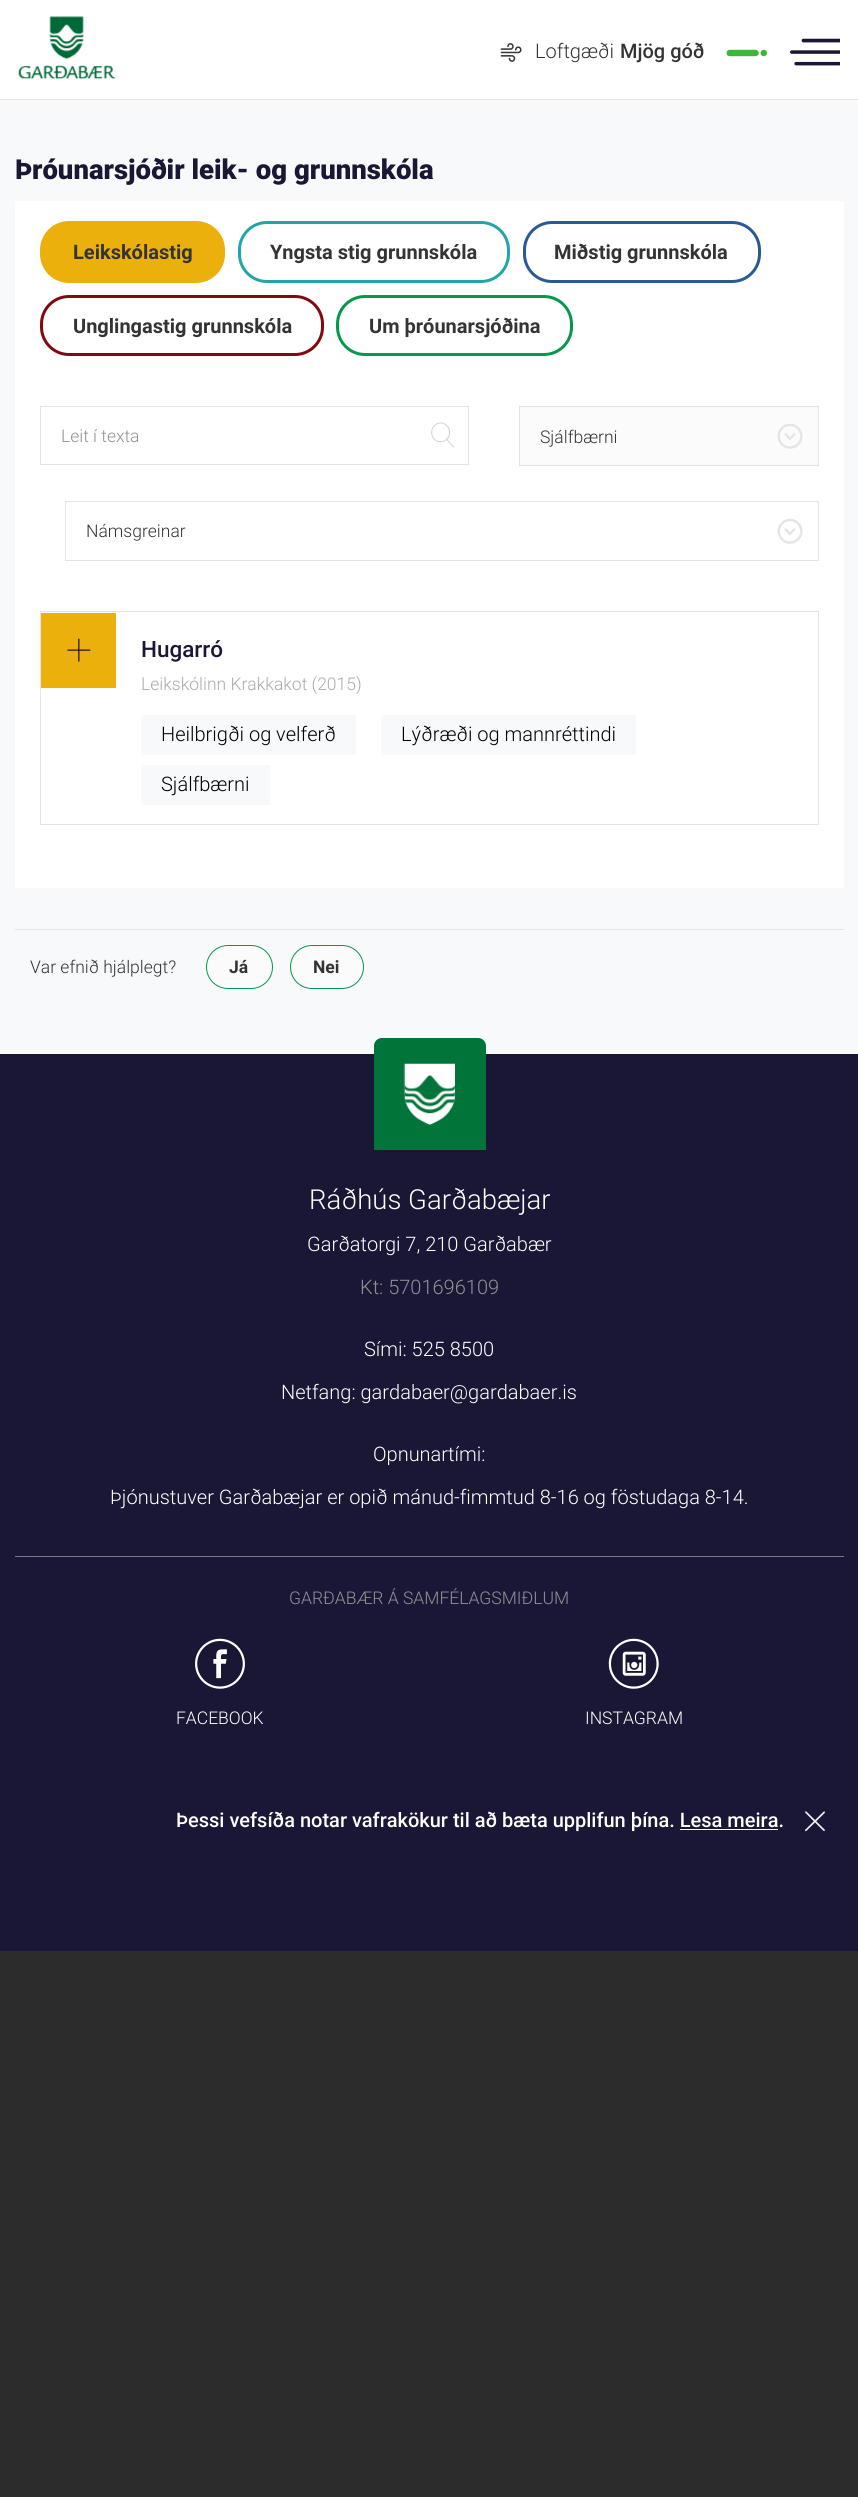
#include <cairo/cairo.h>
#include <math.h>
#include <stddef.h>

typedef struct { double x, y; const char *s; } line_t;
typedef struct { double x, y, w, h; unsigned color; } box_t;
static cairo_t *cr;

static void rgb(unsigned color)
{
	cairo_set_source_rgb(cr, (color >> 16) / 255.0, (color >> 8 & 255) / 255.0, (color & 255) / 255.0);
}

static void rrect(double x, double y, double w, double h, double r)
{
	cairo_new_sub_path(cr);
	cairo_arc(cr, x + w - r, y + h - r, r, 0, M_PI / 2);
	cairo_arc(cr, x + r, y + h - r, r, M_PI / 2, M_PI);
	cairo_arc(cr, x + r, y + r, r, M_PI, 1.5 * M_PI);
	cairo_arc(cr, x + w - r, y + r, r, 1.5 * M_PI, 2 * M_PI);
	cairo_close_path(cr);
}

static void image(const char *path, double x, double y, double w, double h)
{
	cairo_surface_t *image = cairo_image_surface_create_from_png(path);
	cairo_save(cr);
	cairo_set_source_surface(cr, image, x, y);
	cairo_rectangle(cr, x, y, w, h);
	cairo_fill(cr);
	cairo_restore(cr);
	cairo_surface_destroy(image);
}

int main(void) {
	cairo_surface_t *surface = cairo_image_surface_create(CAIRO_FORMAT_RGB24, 858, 2497);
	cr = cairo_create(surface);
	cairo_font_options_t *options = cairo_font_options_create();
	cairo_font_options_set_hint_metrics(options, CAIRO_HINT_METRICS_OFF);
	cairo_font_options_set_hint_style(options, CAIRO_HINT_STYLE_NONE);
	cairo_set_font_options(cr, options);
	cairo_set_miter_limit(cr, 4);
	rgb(0x2c2c2c);
	cairo_paint(cr);
	rgb(0xffffff);
	cairo_rectangle(cr, 0, 0, 858, 99);
	cairo_fill(cr);
	rgb(0xe4e4e4);
	cairo_rectangle(cr, 0, 99, 858, 1);
	cairo_fill(cr);
	image("img/1.png", 18, 16, 97, 64);
	image("img/2.png", 790, 38, 50, 28);
	image("img/3.png", 500, 43, 22, 19);
	image("img/4.png", 726, 49, 41, 8);
	rgb(0xf7f9fb);
	cairo_rectangle(cr, 0, 100, 858, 954);
	cairo_fill(cr);
	rgb(0xffffff);
	cairo_rectangle(cr, 15, 201, 829, 687);
	cairo_fill(cr);
	rgb(0xecb00d);
	rrect(41.5, 222.5, 182, 59, 27.5);
	cairo_fill_preserve(cr);
	cairo_set_line_width(cr, 3);
	cairo_stroke(cr);
	rrect(239.5, 222.5, 269, 59, 27.5);
	rgb(0x23a4a6);
	cairo_stroke(cr);
	rrect(524.5, 222.5, 235, 59, 27.5);
	rgb(0x295a95);
	cairo_stroke(cr);
	rrect(41.5, 296.5, 281, 58, 27.5);
	rgb(0x820812);
	cairo_stroke(cr);
	rrect(337.5, 296.5, 234, 58, 27.5);
	rgb(0x05984d);
	cairo_stroke(cr);
	cairo_rectangle(cr, 40.5, 406.5, 428, 58);
	rgb(0xe4e4e4);
	cairo_set_line_width(cr, 1);
	cairo_stroke(cr);
	image("img/5.png", 431, 422, 23, 26);
	rgb(0xfbfbfb);
	cairo_rectangle(cr, 519.5, 406.5, 299, 59);
	cairo_fill_preserve(cr);
	rgb(0xe4e4e4);
	cairo_stroke(cr);
	image("img/6.png", 777, 423, 26, 26);
	cairo_rectangle(cr, 65.5, 501.5, 753, 59);
	cairo_stroke(cr);
	image("img/7.png", 777, 518, 26, 26);
	cairo_rectangle(cr, 40.5, 611.5, 778, 213);
	cairo_stroke(cr);
	rgb(0xecb00d);
	cairo_rectangle(cr, 41, 613, 75, 75);
	cairo_fill(cr);
	image("img/8.png", 67, 638, 24, 24);
	{
		static const box_t items[] = {
			{141, 715, 215, 40, 0xf7f9fb},
			{381, 715, 255, 40, 0xf7f9fb},
			{141, 765, 129, 40, 0xf7f9fb},
			{15, 929, 829, 1, 0xe4e4e4},
		};
		for (size_t i = 0; i < sizeof items / sizeof *items; i++) {
			rgb(items[i].color);
			cairo_rectangle(cr, items[i].x, items[i].y, items[i].w, items[i].h);
			cairo_fill(cr);
		}
	}
	rgb(0xfbfbfb);
	rrect(206.5, 945.5, 66, 43, 21.5);
	cairo_fill_preserve(cr);
	rgb(0x05984d);
	cairo_stroke(cr);
	rgb(0xfbfbfb);
	rrect(290.5, 945.5, 73, 43, 21.5);
	cairo_fill_preserve(cr);
	rgb(0x05984d);
	cairo_stroke(cr);
	rgb(0x1a1736);
	cairo_rectangle(cr, 0, 1054, 858, 897);
	cairo_fill(cr);
	rgb(0x007439);
	cairo_new_path(cr);
	cairo_move_to(cr, 382, 1038);
	cairo_line_to(cr, 478, 1038);
	cairo_curve_to(cr, 482.5, 1038, 486, 1041.5, 486, 1046);
	cairo_line_to(cr, 486, 1150);
	cairo_line_to(cr, 374, 1150);
	cairo_line_to(cr, 374, 1046);
	cairo_curve_to(cr, 374, 1041.5, 377.5, 1038, 382, 1038);
	cairo_close_path(cr);
	cairo_fill(cr);
	image("img/9.png", 403, 1063, 52, 62);
	rgb(0x7a7a7a);
	cairo_rectangle(cr, 15, 1556, 829, 1);
	cairo_fill(cr);
	image("img/10.png", 195, 1638, 50, 51);
	image("img/11.png", 608, 1638, 51, 51);
	image("img/12.png", 805, 1811, 20, 21);
	rgb(0xffffff);
	cairo_rectangle(cr, 680, 1829, 98, 1);
	cairo_fill(cr);
	cairo_select_font_face(cr, "Roboto Light", CAIRO_FONT_SLANT_NORMAL, CAIRO_FONT_WEIGHT_NORMAL);
	cairo_set_font_size(cr, 20);
	rgb(0x343434);
	cairo_move_to(cr, 535, 58);
	cairo_show_text(cr, "Loftgæði");
	cairo_select_font_face(cr, "Roboto Medium", CAIRO_FONT_SLANT_NORMAL, CAIRO_FONT_WEIGHT_NORMAL);
	cairo_move_to(cr, 620, 58);
	cairo_show_text(cr, "Mjög góð");
	cairo_select_font_face(cr, "Roboto Black", CAIRO_FONT_SLANT_NORMAL, CAIRO_FONT_WEIGHT_NORMAL);
	cairo_set_font_size(cr, 27.5);
	rgb(0x1a1736);
	cairo_move_to(cr, 15, 179);
	cairo_show_text(cr, "Þróunarsjóðir leik- og grunnskóla");
	cairo_select_font_face(cr, "Roboto", CAIRO_FONT_SLANT_NORMAL, CAIRO_FONT_WEIGHT_BOLD);
	cairo_set_font_size(cr, 20);
	rgb(0x343434);
	{
		static const line_t items[] = {
			{73, 259, "Leikskólastig"},
			{270, 259, "Yngsta stig grunnskóla"},
			{554, 259, "Miðstig grunnskóla"},
			{73, 333, "Unglingastig grunnskóla"},
			{369, 333, "Um þróunarsjóðina"},
		};
		for (size_t i = 0; i < sizeof items / sizeof *items; i++) {
			cairo_move_to(cr, items[i].x, items[i].y);
			cairo_show_text(cr, items[i].s);
		}
	}
	cairo_select_font_face(cr, "Roboto Light", CAIRO_FONT_SLANT_NORMAL, CAIRO_FONT_WEIGHT_NORMAL);
	cairo_set_font_size(cr, 17.5);
	rgb(0x919191);
	cairo_move_to(cr, 61, 442);
	cairo_show_text(cr, "Leit í texta");
	rgb(0x343434);
	cairo_move_to(cr, 540, 443);
	cairo_show_text(cr, "Sjálfbærni");
	cairo_move_to(cr, 86, 537);
	cairo_show_text(cr, "Námsgreinar");
	cairo_select_font_face(cr, "Roboto Medium", CAIRO_FONT_SLANT_NORMAL, CAIRO_FONT_WEIGHT_NORMAL);
	cairo_set_font_size(cr, 22.5);
	rgb(0x1a1736);
	cairo_move_to(cr, 141, 657);
	cairo_show_text(cr, "Hugarró");
	cairo_select_font_face(cr, "Roboto Light", CAIRO_FONT_SLANT_NORMAL, CAIRO_FONT_WEIGHT_NORMAL);
	cairo_set_font_size(cr, 17.5);
	rgb(0xaaaaaa);
	cairo_move_to(cr, 141, 690);
	cairo_show_text(cr, "Leikskólinn Krakkakot (2015)");
	cairo_set_font_size(cr, 20);
	rgb(0x000000);
	{
		static const line_t items[] = {
			{161, 741, "Heilbrigði og velferð"},
			{401, 741, "Lýðræði og mannréttindi"},
			{161, 791, "Sjálfbærni"},
		};
		for (size_t i = 0; i < sizeof items / sizeof *items; i++) {
			cairo_move_to(cr, items[i].x, items[i].y);
			cairo_show_text(cr, items[i].s);
		}
	}
	cairo_set_font_size(cr, 17.5);
	rgb(0x343434);
	cairo_move_to(cr, 30, 973);
	cairo_show_text(cr, "Var efnið hjálplegt?");
	cairo_select_font_face(cr, "Roboto", CAIRO_FONT_SLANT_NORMAL, CAIRO_FONT_WEIGHT_BOLD);
	cairo_move_to(cr, 229, 973);
	cairo_show_text(cr, "Já");
	cairo_move_to(cr, 313, 973);
	cairo_show_text(cr, "Nei");
	cairo_select_font_face(cr, "Roboto Light", CAIRO_FONT_SLANT_NORMAL, CAIRO_FONT_WEIGHT_NORMAL);
	cairo_set_font_size(cr, 27.5);
	rgb(0xffffff);
	cairo_move_to(cr, 309, 1209);
	cairo_show_text(cr, "Ráðhús Garðabæjar");
	cairo_set_font_size(cr, 20);
	cairo_move_to(cr, 307, 1251);
	cairo_show_text(cr, "Garðatorgi 7, 210 Garðabær");
	rgb(0x919191);
	cairo_move_to(cr, 360, 1294);
	cairo_show_text(cr, "Kt: 5701696109");
	rgb(0xffffff);
	{
		static const line_t items[] = {
			{364, 1356, "Sími: 525 8500"},
			{281, 1399, "Netfang: gardabaer@gardabaer.is"},
			{373, 1461, "Opnunartími:"},
			{110, 1504, "Þjónustuver Garðabæjar er opið mánud-fimmtud 8-16 og föstudaga 8-14."},
		};
		for (size_t i = 0; i < sizeof items / sizeof *items; i++) {
			cairo_move_to(cr, items[i].x, items[i].y);
			cairo_show_text(cr, items[i].s);
		}
	}
	cairo_set_font_size(cr, 17.5);
	rgb(0x919191);
	cairo_move_to(cr, 289, 1604);
	cairo_show_text(cr, "GARÐABÆR Á SAMFÉLAGSMIÐLUM");
	rgb(0xffffff);
	cairo_move_to(cr, 176, 1724);
	cairo_show_text(cr, "FACEBOOK");
	cairo_move_to(cr, 585, 1724);
	cairo_show_text(cr, "INSTAGRAM");
	cairo_select_font_face(cr, "Roboto Medium", CAIRO_FONT_SLANT_NORMAL, CAIRO_FONT_WEIGHT_NORMAL);
	cairo_set_font_size(cr, 20);
	cairo_move_to(cr, 176, 1827);
	cairo_show_text(cr, "Þessi vefsíða notar vafrakökur til að bæta upplifun þína. Lesa meira.");
	cairo_surface_write_to_png(surface, "page.png");
	cairo_font_options_destroy(options);
	cairo_destroy(cr);
	cairo_surface_destroy(surface);
	return 0;
}
